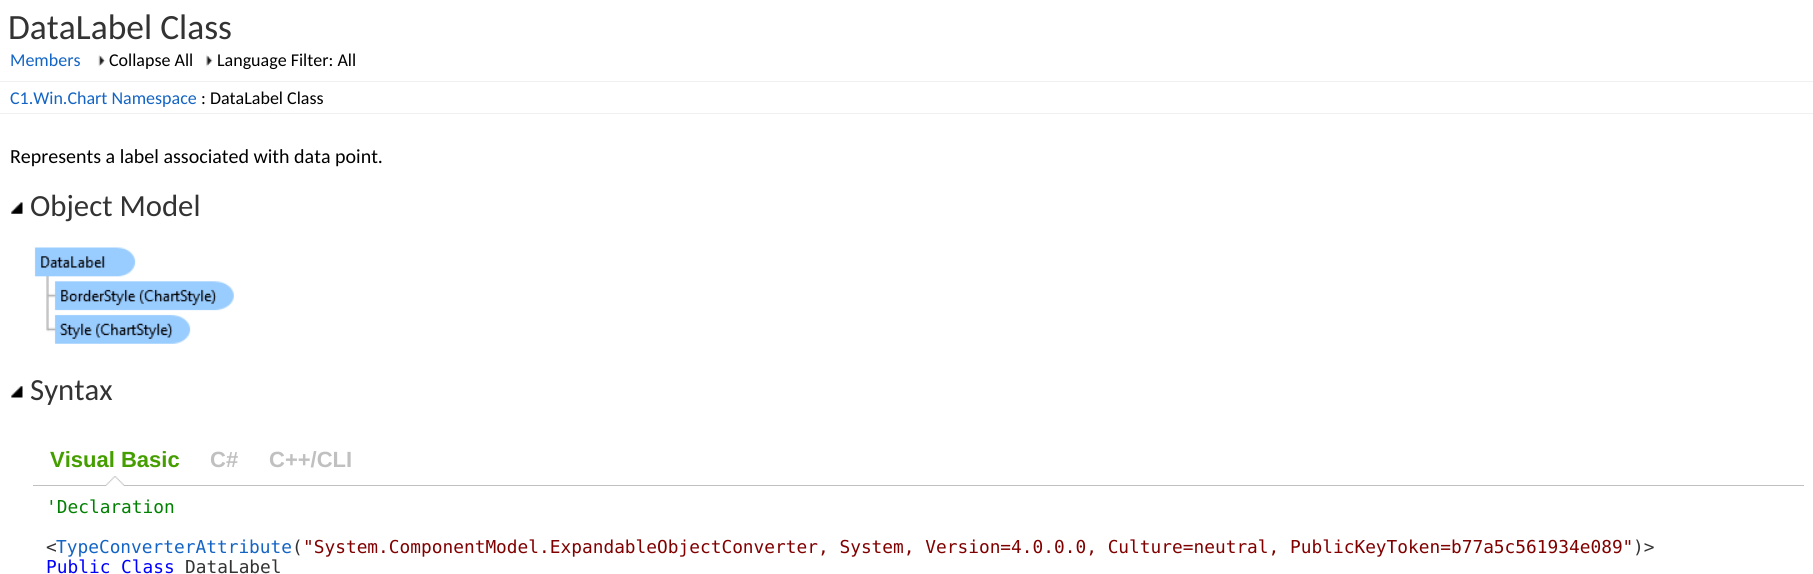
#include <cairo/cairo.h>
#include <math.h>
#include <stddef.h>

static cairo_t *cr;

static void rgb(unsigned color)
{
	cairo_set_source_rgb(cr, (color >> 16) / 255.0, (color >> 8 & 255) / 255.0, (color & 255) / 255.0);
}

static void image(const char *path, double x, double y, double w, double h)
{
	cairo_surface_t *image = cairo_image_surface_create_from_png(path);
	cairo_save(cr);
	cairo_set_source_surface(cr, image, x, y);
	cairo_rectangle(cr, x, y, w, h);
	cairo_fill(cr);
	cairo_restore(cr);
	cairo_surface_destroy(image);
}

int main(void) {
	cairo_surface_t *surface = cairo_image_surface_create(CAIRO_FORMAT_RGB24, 1813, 574);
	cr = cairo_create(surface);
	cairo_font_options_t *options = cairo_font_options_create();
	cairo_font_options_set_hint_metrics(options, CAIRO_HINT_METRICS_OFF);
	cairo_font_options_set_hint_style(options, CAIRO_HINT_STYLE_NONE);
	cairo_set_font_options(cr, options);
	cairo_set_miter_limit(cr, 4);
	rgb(0xffffff);
	cairo_paint(cr);
	image("img/1.png", 98, 55, 8, 12);
	image("img/2.png", 206, 55, 7, 12);
	rgb(0xf0f0f0);
	cairo_rectangle(cr, 0, 81, 1813, 1);
	cairo_fill(cr);
	cairo_rectangle(cr, 0, 113, 1813, 1);
	cairo_fill(cr);
	image("img/3.png", 11, 202, 12, 12);
	image("img/4.png", 34, 247, 200, 97);
	image("img/5.png", 11, 386, 12, 12);
	rgb(0xc0c0c0);
	cairo_rectangle(cr, 33, 485, 1771, 1);
	cairo_fill(cr);
	image("img/6.png", 105, 476, 20, 11);
	cairo_select_font_face(cr, "Carlito", CAIRO_FONT_SLANT_NORMAL, CAIRO_FONT_WEIGHT_NORMAL);
	cairo_set_font_size(cr, 35.5);
	rgb(0x333333);
	cairo_move_to(cr, 8, 39);
	cairo_show_text(cr, "DataLabel Class");
	cairo_set_font_size(cr, 18);
	rgb(0x1364c4);
	cairo_move_to(cr, 10, 66);
	cairo_show_text(cr, "Members");
	rgb(0x000000);
	cairo_move_to(cr, 109, 66);
	cairo_show_text(cr, "Collapse All");
	cairo_move_to(cr, 217, 66);
	cairo_show_text(cr, "Language Filter: All");
	rgb(0x1364c4);
	cairo_move_to(cr, 10, 104);
	cairo_show_text(cr, "C1.Win.Chart Namespace");
	rgb(0x000000);
	cairo_move_to(cr, 201, 104);
	cairo_show_text(cr, ": DataLabel Class");
	cairo_set_font_size(cr, 20);
	cairo_move_to(cr, 10, 163);
	cairo_show_text(cr, "Represents a label associated with data point.");
	cairo_set_font_size(cr, 30.75);
	rgb(0x333333);
	cairo_move_to(cr, 30, 216);
	cairo_show_text(cr, "Object Model");
	cairo_move_to(cr, 30, 400);
	cairo_show_text(cr, "Syntax");
	cairo_select_font_face(cr, "Liberation Sans", CAIRO_FONT_SLANT_NORMAL, CAIRO_FONT_WEIGHT_BOLD);
	cairo_set_font_size(cr, 22);
	rgb(0x459e00);
	cairo_move_to(cr, 50, 467);
	cairo_show_text(cr, "Visual Basic");
	rgb(0xc0c0c0);
	cairo_move_to(cr, 210, 467);
	cairo_show_text(cr, "C#");
	cairo_move_to(cr, 269, 467);
	cairo_show_text(cr, "C++/CLI");
	cairo_select_font_face(cr, "DejaVu Sans Mono", CAIRO_FONT_SLANT_NORMAL, CAIRO_FONT_WEIGHT_NORMAL);
	cairo_set_font_size(cr, 17.82);
	rgb(0x008000);
	cairo_move_to(cr, 46, 513);
	cairo_show_text(cr, "'Declaration");
	rgb(0x333333);
	cairo_move_to(cr, 46, 553);
	cairo_show_text(cr, "<");
	rgb(0x1364c4);
	cairo_move_to(cr, 56, 553);
	cairo_show_text(cr, "TypeConverterAttribute");
	rgb(0x333333);
	cairo_move_to(cr, 292, 553);
	cairo_show_text(cr, "(");
	rgb(0x800000);
	cairo_move_to(cr, 303, 553);
	cairo_show_text(cr, "\"System.ComponentModel.ExpandableObjectConverter, System, Version=4.0.0.0, Culture=neutral, PublicKeyToken=b77a5c561934e089\"");
	rgb(0x333333);
	cairo_move_to(cr, 1633, 553);
	cairo_show_text(cr, ")>");
	rgb(0x0000ff);
	cairo_move_to(cr, 46, 573);
	cairo_show_text(cr, "Public Class");
	rgb(0x333333);
	cairo_move_to(cr, 185, 573);
	cairo_show_text(cr, "DataLabel");
	cairo_surface_write_to_png(surface, "page.png");
	cairo_font_options_destroy(options);
	cairo_destroy(cr);
	cairo_surface_destroy(surface);
	return 0;
}
